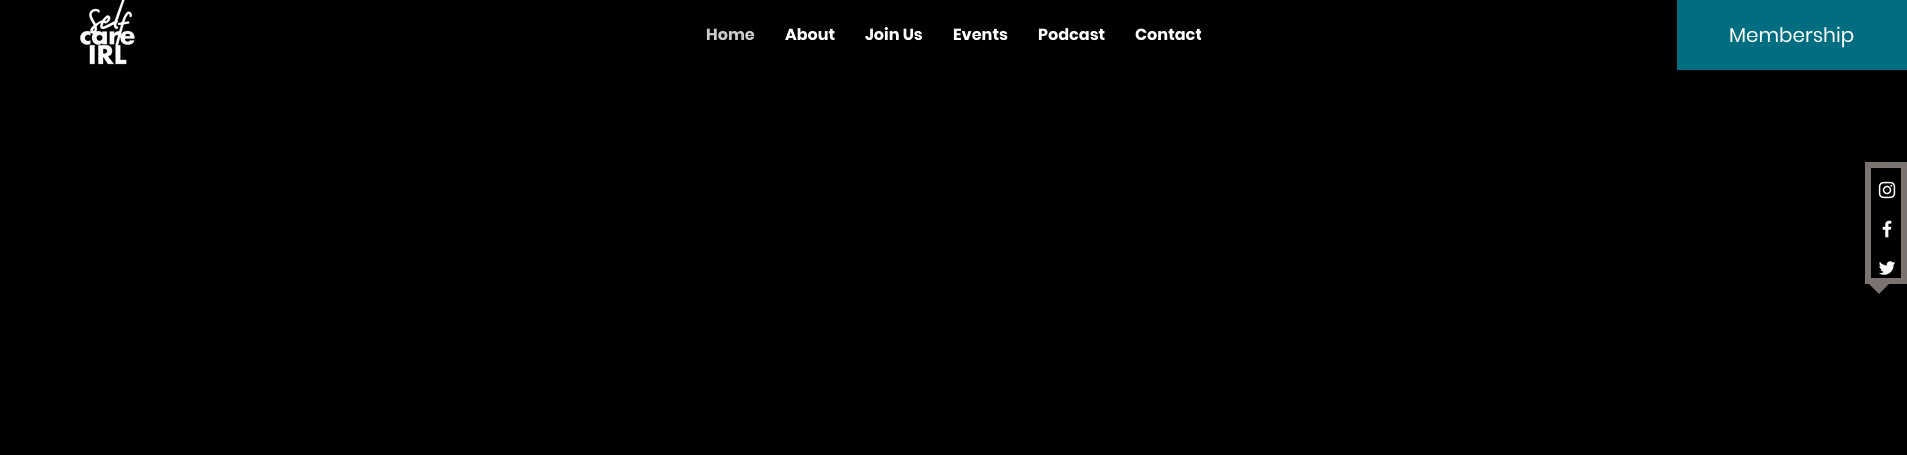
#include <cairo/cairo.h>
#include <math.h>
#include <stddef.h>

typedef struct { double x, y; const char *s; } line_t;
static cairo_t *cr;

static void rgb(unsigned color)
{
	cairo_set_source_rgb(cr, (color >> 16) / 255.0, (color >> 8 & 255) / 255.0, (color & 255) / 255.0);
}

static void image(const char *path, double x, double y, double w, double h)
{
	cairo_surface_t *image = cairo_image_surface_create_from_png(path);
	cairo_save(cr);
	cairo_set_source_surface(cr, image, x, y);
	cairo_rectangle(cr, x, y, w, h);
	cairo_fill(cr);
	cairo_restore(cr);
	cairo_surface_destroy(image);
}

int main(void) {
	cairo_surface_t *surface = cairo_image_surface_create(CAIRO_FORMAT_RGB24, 1907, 455);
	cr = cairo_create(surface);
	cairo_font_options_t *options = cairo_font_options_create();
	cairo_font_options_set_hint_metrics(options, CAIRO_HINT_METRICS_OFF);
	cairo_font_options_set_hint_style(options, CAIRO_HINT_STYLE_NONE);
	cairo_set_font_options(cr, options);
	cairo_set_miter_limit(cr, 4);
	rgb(0x000000);
	cairo_paint(cr);
	image("img/1.png", 80, 0, 55, 65);
	rgb(0x016d81);
	cairo_rectangle(cr, 1677, 0, 230, 70);
	cairo_fill(cr);
	cairo_rectangle(cr, 1868, 165, 36, 116);
	rgb(0x7b736f);
	cairo_set_line_width(cr, 6);
	cairo_stroke(cr);
	image("img/2.png", 1878, 181, 18, 18);
	image("img/3.png", 1882, 220, 10, 18);
	image("img/4.png", 1879, 261, 17, 14);
	cairo_new_path(cr);
	cairo_move_to(cr, 1869, 284);
	cairo_line_to(cr, 1889, 284);
	cairo_line_to(cr, 1879, 294);
	cairo_close_path(cr);
	cairo_fill(cr);
	cairo_select_font_face(cr, "Poppins", CAIRO_FONT_SLANT_NORMAL, CAIRO_FONT_WEIGHT_BOLD);
	cairo_set_font_size(cr, 16);
	rgb(0xcccccc);
	cairo_move_to(cr, 706, 40);
	cairo_show_text(cr, "Home");
	rgb(0xffffff);
	{
		static const line_t items[] = {
			{785, 40, "About"},
			{865, 40, "Join Us"},
			{953, 40, "Events"},
			{1038, 40, "Podcast"},
			{1135, 40, "Contact"},
		};
		for (size_t i = 0; i < sizeof items / sizeof *items; i++) {
			cairo_move_to(cr, items[i].x, items[i].y);
			cairo_show_text(cr, items[i].s);
		}
	}
	cairo_select_font_face(cr, "Poppins", CAIRO_FONT_SLANT_NORMAL, CAIRO_FONT_WEIGHT_NORMAL);
	cairo_set_font_size(cr, 20);
	cairo_move_to(cr, 1729, 42);
	cairo_show_text(cr, "Membership");
	cairo_surface_write_to_png(surface, "page.png");
	cairo_font_options_destroy(options);
	cairo_destroy(cr);
	cairo_surface_destroy(surface);
	return 0;
}
